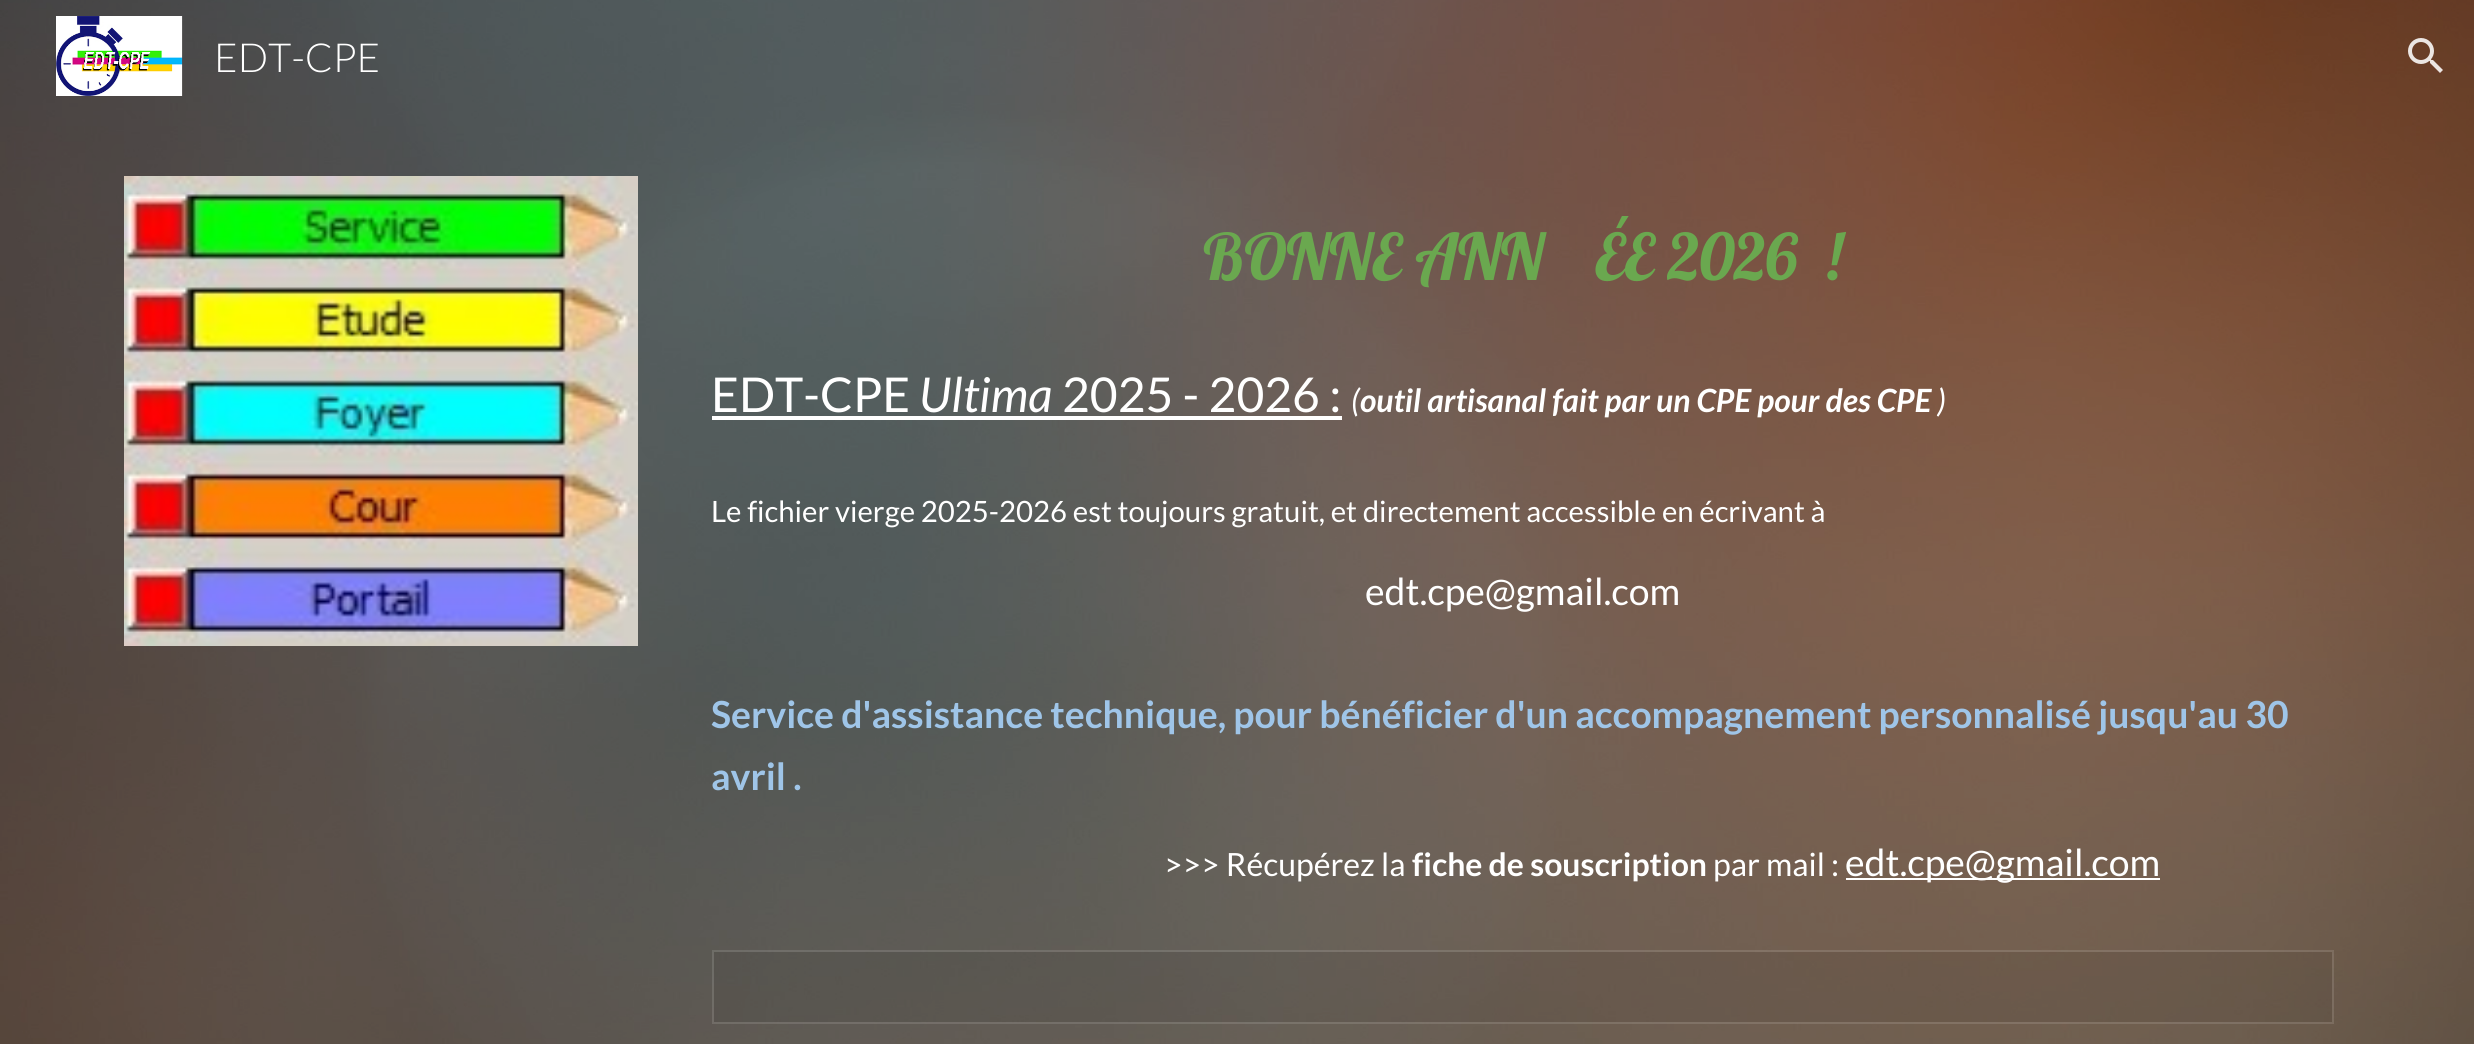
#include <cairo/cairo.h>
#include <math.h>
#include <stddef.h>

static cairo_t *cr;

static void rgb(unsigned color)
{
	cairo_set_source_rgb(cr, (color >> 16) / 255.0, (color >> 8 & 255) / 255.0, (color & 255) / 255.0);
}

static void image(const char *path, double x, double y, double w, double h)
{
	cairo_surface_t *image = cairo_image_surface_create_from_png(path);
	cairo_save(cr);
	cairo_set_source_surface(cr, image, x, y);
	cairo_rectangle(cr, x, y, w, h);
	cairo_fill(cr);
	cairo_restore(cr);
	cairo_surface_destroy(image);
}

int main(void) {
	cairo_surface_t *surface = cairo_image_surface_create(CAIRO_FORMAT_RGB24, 2474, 1044);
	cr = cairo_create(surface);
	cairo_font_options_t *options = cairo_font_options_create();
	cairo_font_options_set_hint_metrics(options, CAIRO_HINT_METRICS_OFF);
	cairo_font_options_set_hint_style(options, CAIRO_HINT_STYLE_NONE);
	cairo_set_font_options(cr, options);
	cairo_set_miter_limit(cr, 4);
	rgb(0xffffff);
	cairo_paint(cr);
	image("img/3.png", 0, 0, 2474, 1044);
	image("img/1.png", 56, 16, 127, 80);
	image("img/2.png", 2408, 38, 35, 35);
	image("img/4.png", 124, 176, 514, 470);
	rgb(0xffffff);
	cairo_rectangle(cr, 712, 416, 630, 4);
	cairo_fill(cr);
	cairo_rectangle(cr, 1846, 878, 314, 2);
	cairo_fill(cr);
	cairo_set_source_rgba(cr, 0, 0, 0, 0.06);
	cairo_rectangle(cr, 714, 952, 1618, 70);
	cairo_fill(cr);
	cairo_rectangle(cr, 713, 951, 1620, 72);
	cairo_set_source_rgba(cr, 1, 1, 1, 0.12);
	cairo_stroke(cr);
	cairo_select_font_face(cr, "Lato Light", CAIRO_FONT_SLANT_NORMAL, CAIRO_FONT_WEIGHT_NORMAL);
	cairo_set_font_size(cr, 40);
	rgb(0xffffff);
	cairo_move_to(cr, 214, 72);
	cairo_show_text(cr, "EDT-CPE");
	cairo_select_font_face(cr, "Lobster", CAIRO_FONT_SLANT_NORMAL, CAIRO_FONT_WEIGHT_NORMAL);
	cairo_set_font_size(cr, 64);
	rgb(0x6aa84f);
	cairo_move_to(cr, 1203, 280);
	cairo_show_text(cr, "BONNE ANN");
	cairo_move_to(cr, 1595, 280);
	cairo_show_text(cr, "ÉE 2026  !");
	cairo_select_font_face(cr, "Lato", CAIRO_FONT_SLANT_NORMAL, CAIRO_FONT_WEIGHT_NORMAL);
	cairo_set_font_size(cr, 48);
	rgb(0xffffff);
	cairo_move_to(cr, 711, 412);
	cairo_show_text(cr, "EDT-CPE");
	cairo_select_font_face(cr, "Lato", CAIRO_FONT_SLANT_ITALIC, CAIRO_FONT_WEIGHT_NORMAL);
	cairo_move_to(cr, 919, 412);
	cairo_show_text(cr, "Ultima");
	cairo_select_font_face(cr, "Lato", CAIRO_FONT_SLANT_NORMAL, CAIRO_FONT_WEIGHT_NORMAL);
	cairo_move_to(cr, 1062, 412);
	cairo_show_text(cr, "2025 - 2026 :");
	cairo_select_font_face(cr, "Lato", CAIRO_FONT_SLANT_ITALIC, CAIRO_FONT_WEIGHT_NORMAL);
	cairo_set_font_size(cr, 32);
	cairo_move_to(cr, 1351, 412);
	cairo_show_text(cr, "(");
	cairo_select_font_face(cr, "Lato", CAIRO_FONT_SLANT_ITALIC, CAIRO_FONT_WEIGHT_BOLD);
	cairo_move_to(cr, 1360, 412);
	cairo_show_text(cr, "outil artisanal fait par un CPE pour des CPE");
	cairo_select_font_face(cr, "Lato", CAIRO_FONT_SLANT_ITALIC, CAIRO_FONT_WEIGHT_NORMAL);
	cairo_move_to(cr, 1937, 412);
	cairo_show_text(cr, ")");
	cairo_select_font_face(cr, "Lato", CAIRO_FONT_SLANT_NORMAL, CAIRO_FONT_WEIGHT_NORMAL);
	cairo_set_font_size(cr, 29.35);
	cairo_move_to(cr, 711, 522);
	cairo_show_text(cr, "Le fichier vierge 2025-2026 est toujours gratuit, et directement accessible en écrivant à");
	cairo_set_font_size(cr, 37.35);
	cairo_move_to(cr, 1365, 605);
	cairo_show_text(cr, "edt.cpe@gmail.com");
	cairo_select_font_face(cr, "Lato", CAIRO_FONT_SLANT_NORMAL, CAIRO_FONT_WEIGHT_BOLD);
	rgb(0x9fc5e8);
	cairo_move_to(cr, 711, 728);
	cairo_show_text(cr, "Service d'assistance technique, pour bénéficier d'un accompagnement personnalisé jusqu'au 30");
	cairo_move_to(cr, 711, 790);
	cairo_show_text(cr, "avril .");
	cairo_select_font_face(cr, "Lato", CAIRO_FONT_SLANT_NORMAL, CAIRO_FONT_WEIGHT_NORMAL);
	cairo_set_font_size(cr, 32);
	rgb(0xffffff);
	cairo_move_to(cr, 1164, 876);
	cairo_show_text(cr, ">>> Récupérez la");
	cairo_select_font_face(cr, "Lato", CAIRO_FONT_SLANT_NORMAL, CAIRO_FONT_WEIGHT_BOLD);
	cairo_move_to(cr, 1412, 876);
	cairo_show_text(cr, "fiche de souscription");
	cairo_select_font_face(cr, "Lato", CAIRO_FONT_SLANT_NORMAL, CAIRO_FONT_WEIGHT_NORMAL);
	cairo_move_to(cr, 1713, 876);
	cairo_show_text(cr, "par mail :");
	cairo_set_font_size(cr, 37.35);
	cairo_move_to(cr, 1845, 876);
	cairo_show_text(cr, "edt.cpe@gmail.com");
	cairo_surface_write_to_png(surface, "page.png");
	cairo_font_options_destroy(options);
	cairo_destroy(cr);
	cairo_surface_destroy(surface);
	return 0;
}
